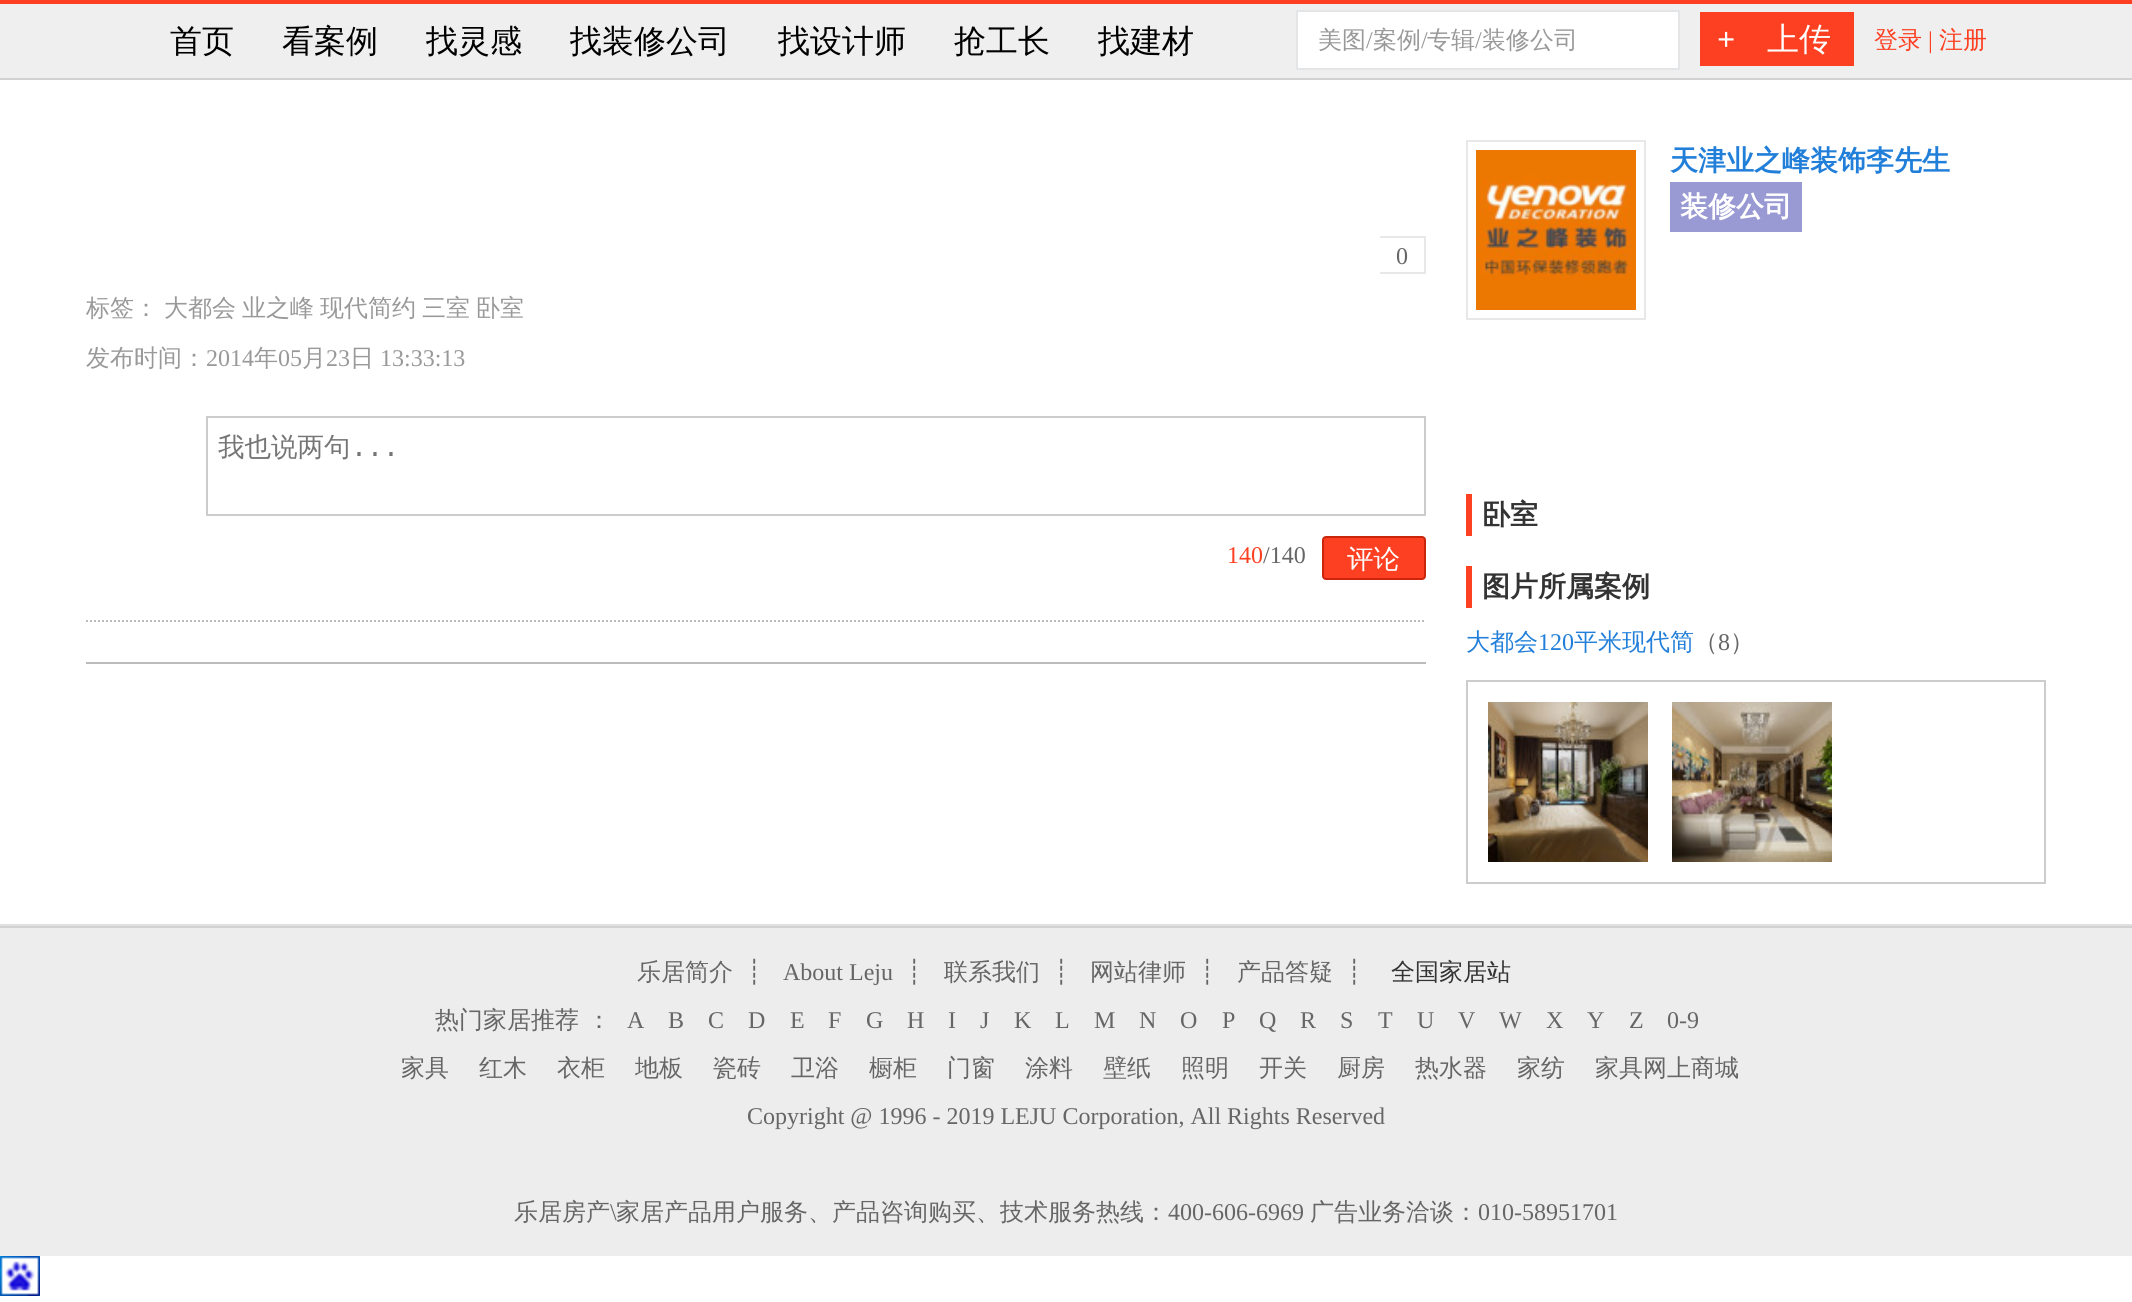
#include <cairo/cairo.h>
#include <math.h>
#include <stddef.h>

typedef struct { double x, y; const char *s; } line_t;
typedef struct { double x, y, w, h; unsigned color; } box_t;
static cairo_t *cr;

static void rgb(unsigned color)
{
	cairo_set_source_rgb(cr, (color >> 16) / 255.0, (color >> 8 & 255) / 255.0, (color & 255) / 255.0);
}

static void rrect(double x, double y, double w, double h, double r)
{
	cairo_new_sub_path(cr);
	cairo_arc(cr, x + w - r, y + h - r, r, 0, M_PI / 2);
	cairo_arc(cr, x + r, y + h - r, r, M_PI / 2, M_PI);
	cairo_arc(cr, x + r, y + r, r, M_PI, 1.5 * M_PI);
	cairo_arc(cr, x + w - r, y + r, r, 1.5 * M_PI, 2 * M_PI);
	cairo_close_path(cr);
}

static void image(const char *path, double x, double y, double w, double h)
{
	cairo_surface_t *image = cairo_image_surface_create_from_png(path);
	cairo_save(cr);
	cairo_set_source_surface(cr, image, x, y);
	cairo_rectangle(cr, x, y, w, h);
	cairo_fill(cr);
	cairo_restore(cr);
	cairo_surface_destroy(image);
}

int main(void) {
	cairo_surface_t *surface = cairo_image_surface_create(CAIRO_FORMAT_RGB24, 2132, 1302);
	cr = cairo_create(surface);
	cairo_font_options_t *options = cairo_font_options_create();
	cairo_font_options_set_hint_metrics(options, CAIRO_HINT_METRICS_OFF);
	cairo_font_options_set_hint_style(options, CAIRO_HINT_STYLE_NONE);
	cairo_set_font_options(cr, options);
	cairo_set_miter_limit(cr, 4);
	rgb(0xffffff);
	cairo_paint(cr);
	{
		static const box_t items[] = {
			{0, 4, 2132, 74, 0xefefef},
			{0, 0, 2132, 4, 0xfd4022},
			{0, 78, 2132, 2, 0xd2d2d2},
		};
		for (size_t i = 0; i < sizeof items / sizeof *items; i++) {
			rgb(items[i].color);
			cairo_rectangle(cr, items[i].x, items[i].y, items[i].w, items[i].h);
			cairo_fill(cr);
		}
	}
	rgb(0xffffff);
	cairo_rectangle(cr, 1297, 11, 382, 58);
	cairo_fill_preserve(cr);
	rgb(0xe3e5e6);
	cairo_stroke(cr);
	{
		static const box_t items[] = {
			{1700, 12, 154, 54, 0xfd4022},
			{1380, 236, 46, 2, 0xe8e8e8},
			{1424, 236, 2, 38, 0xe8e8e8},
			{1380, 272, 46, 2, 0xe8e8e8},
		};
		for (size_t i = 0; i < sizeof items / sizeof *items; i++) {
			rgb(items[i].color);
			cairo_rectangle(cr, items[i].x, items[i].y, items[i].w, items[i].h);
			cairo_fill(cr);
		}
	}
	cairo_rectangle(cr, 207, 417, 1218, 98);
	rgb(0xcccccc);
	cairo_stroke(cr);
	rgb(0xfd4022);
	rrect(1323, 537, 102, 42, 3);
	cairo_fill_preserve(cr);
	rgb(0xcb260c);
	cairo_stroke(cr);
	cairo_new_path(cr);
	cairo_move_to(cr, 86, 621);
	cairo_line_to(cr, 1426, 621);
	rgb(0xbcbcbc);
	cairo_set_dash(cr, (double[]){2, 2}, 2, 0);
	cairo_stroke(cr);
	cairo_rectangle(cr, 86, 662, 1340, 2);
	cairo_fill(cr);
	cairo_rectangle(cr, 1467, 141, 178, 178);
	rgb(0xe8e8e8);
	cairo_set_dash(cr, NULL, 0, 0);
	cairo_stroke(cr);
	image("img/1.png", 1476, 150, 160, 160);
	{
		static const box_t items[] = {
			{1670, 182, 132, 50, 0x999ad3},
			{1466, 494, 6, 42, 0xfd4022},
			{1466, 566, 6, 42, 0xfd4022},
		};
		for (size_t i = 0; i < sizeof items / sizeof *items; i++) {
			rgb(items[i].color);
			cairo_rectangle(cr, items[i].x, items[i].y, items[i].w, items[i].h);
			cairo_fill(cr);
		}
	}
	cairo_rectangle(cr, 1467, 681, 578, 202);
	rgb(0xcccccc);
	cairo_stroke(cr);
	image("img/2.png", 1488, 702, 160, 160);
	image("img/3.png", 1672, 702, 160, 160);
	{
		static const box_t items[] = {
			{0, 924, 2132, 2, 0xe0e0e0},
			{0, 928, 2132, 328, 0xededed},
			{0, 926, 2132, 2, 0xd2d2d2},
		};
		for (size_t i = 0; i < sizeof items / sizeof *items; i++) {
			rgb(items[i].color);
			cairo_rectangle(cr, items[i].x, items[i].y, items[i].w, items[i].h);
			cairo_fill(cr);
		}
	}
	image("img/4.png", 0, 1256, 40, 40);
	cairo_select_font_face(cr, "WenQuanYi Zen Hei Medium", CAIRO_FONT_SLANT_NORMAL, CAIRO_FONT_WEIGHT_NORMAL);
	cairo_set_font_size(cr, 32);
	rgb(0x010000);
	{
		static const line_t items[] = {
			{170, 52, "首页"},
			{282, 52, "看案例"},
			{426, 52, "找灵感"},
			{570, 52, "找装修公司"},
			{778, 52, "找设计师"},
			{954, 52, "抢工长"},
			{1098, 52, "找建材"},
		};
		for (size_t i = 0; i < sizeof items / sizeof *items; i++) {
			cairo_move_to(cr, items[i].x, items[i].y);
			cairo_show_text(cr, items[i].s);
		}
	}
	cairo_set_font_size(cr, 24);
	rgb(0x999999);
	cairo_move_to(cr, 1318, 48);
	cairo_show_text(cr, "美图");
	cairo_select_font_face(cr, "Liberation Serif", CAIRO_FONT_SLANT_NORMAL, CAIRO_FONT_WEIGHT_NORMAL);
	cairo_move_to(cr, 1366, 48);
	cairo_show_text(cr, "/");
	cairo_select_font_face(cr, "WenQuanYi Zen Hei Medium", CAIRO_FONT_SLANT_NORMAL, CAIRO_FONT_WEIGHT_NORMAL);
	cairo_move_to(cr, 1373, 48);
	cairo_show_text(cr, "案例");
	cairo_select_font_face(cr, "Liberation Serif", CAIRO_FONT_SLANT_NORMAL, CAIRO_FONT_WEIGHT_NORMAL);
	cairo_move_to(cr, 1421, 48);
	cairo_show_text(cr, "/");
	cairo_select_font_face(cr, "WenQuanYi Zen Hei Medium", CAIRO_FONT_SLANT_NORMAL, CAIRO_FONT_WEIGHT_NORMAL);
	cairo_move_to(cr, 1427, 48);
	cairo_show_text(cr, "专辑");
	cairo_select_font_face(cr, "Liberation Serif", CAIRO_FONT_SLANT_NORMAL, CAIRO_FONT_WEIGHT_NORMAL);
	cairo_move_to(cr, 1475, 48);
	cairo_show_text(cr, "/");
	cairo_select_font_face(cr, "WenQuanYi Zen Hei Medium", CAIRO_FONT_SLANT_NORMAL, CAIRO_FONT_WEIGHT_NORMAL);
	cairo_move_to(cr, 1482, 48);
	cairo_show_text(cr, "装修公司");
	cairo_select_font_face(cr, "Liberation Serif", CAIRO_FONT_SLANT_NORMAL, CAIRO_FONT_WEIGHT_BOLD);
	cairo_set_font_size(cr, 32);
	rgb(0xffffff);
	cairo_move_to(cr, 1717, 50);
	cairo_show_text(cr, "+");
	cairo_select_font_face(cr, "WenQuanYi Zen Hei Medium", CAIRO_FONT_SLANT_NORMAL, CAIRO_FONT_WEIGHT_NORMAL);
	cairo_move_to(cr, 1767, 50);
	cairo_show_text(cr, "上传");
	cairo_set_font_size(cr, 24);
	rgb(0xfd4022);
	cairo_move_to(cr, 1874, 48);
	cairo_show_text(cr, "登录");
	cairo_select_font_face(cr, "Liberation Serif", CAIRO_FONT_SLANT_NORMAL, CAIRO_FONT_WEIGHT_NORMAL);
	cairo_move_to(cr, 1928, 48);
	cairo_show_text(cr, "|");
	cairo_select_font_face(cr, "WenQuanYi Zen Hei Medium", CAIRO_FONT_SLANT_NORMAL, CAIRO_FONT_WEIGHT_NORMAL);
	cairo_move_to(cr, 1939, 48);
	cairo_show_text(cr, "注册");
	cairo_select_font_face(cr, "Liberation Serif", CAIRO_FONT_SLANT_NORMAL, CAIRO_FONT_WEIGHT_NORMAL);
	rgb(0x666666);
	cairo_move_to(cr, 1396, 264);
	cairo_show_text(cr, "0");
	cairo_select_font_face(cr, "WenQuanYi Zen Hei Medium", CAIRO_FONT_SLANT_NORMAL, CAIRO_FONT_WEIGHT_NORMAL);
	rgb(0x999999);
	{
		static const line_t items[] = {
			{86, 316, "标签："},
			{164, 316, "大都会"},
			{242, 316, "业之峰"},
			{320, 316, "现代简约"},
			{422, 316, "三室"},
			{476, 316, "卧室"},
			{86, 366, "发布时间："},
		};
		for (size_t i = 0; i < sizeof items / sizeof *items; i++) {
			cairo_move_to(cr, items[i].x, items[i].y);
			cairo_show_text(cr, items[i].s);
		}
	}
	cairo_select_font_face(cr, "Liberation Serif", CAIRO_FONT_SLANT_NORMAL, CAIRO_FONT_WEIGHT_NORMAL);
	cairo_move_to(cr, 206, 366);
	cairo_show_text(cr, "2014");
	cairo_select_font_face(cr, "WenQuanYi Zen Hei Medium", CAIRO_FONT_SLANT_NORMAL, CAIRO_FONT_WEIGHT_NORMAL);
	cairo_move_to(cr, 254, 366);
	cairo_show_text(cr, "年");
	cairo_select_font_face(cr, "Liberation Serif", CAIRO_FONT_SLANT_NORMAL, CAIRO_FONT_WEIGHT_NORMAL);
	cairo_move_to(cr, 278, 366);
	cairo_show_text(cr, "05");
	cairo_select_font_face(cr, "WenQuanYi Zen Hei Medium", CAIRO_FONT_SLANT_NORMAL, CAIRO_FONT_WEIGHT_NORMAL);
	cairo_move_to(cr, 302, 366);
	cairo_show_text(cr, "月");
	cairo_select_font_face(cr, "Liberation Serif", CAIRO_FONT_SLANT_NORMAL, CAIRO_FONT_WEIGHT_NORMAL);
	cairo_move_to(cr, 326, 366);
	cairo_show_text(cr, "23");
	cairo_select_font_face(cr, "WenQuanYi Zen Hei Medium", CAIRO_FONT_SLANT_NORMAL, CAIRO_FONT_WEIGHT_NORMAL);
	cairo_move_to(cr, 350, 366);
	cairo_show_text(cr, "日");
	cairo_select_font_face(cr, "Liberation Serif", CAIRO_FONT_SLANT_NORMAL, CAIRO_FONT_WEIGHT_NORMAL);
	cairo_move_to(cr, 380, 366);
	cairo_show_text(cr, "13:33:13");
	cairo_select_font_face(cr, "WenQuanYi Zen Hei Medium", CAIRO_FONT_SLANT_NORMAL, CAIRO_FONT_WEIGHT_NORMAL);
	cairo_set_font_size(cr, 26.5);
	rgb(0x757575);
	cairo_move_to(cr, 218, 456);
	cairo_show_text(cr, "我也说两句");
	cairo_select_font_face(cr, "DejaVu Sans Mono", CAIRO_FONT_SLANT_NORMAL, CAIRO_FONT_WEIGHT_NORMAL);
	cairo_move_to(cr, 351, 456);
	cairo_show_text(cr, "...");
	cairo_select_font_face(cr, "Liberation Serif", CAIRO_FONT_SLANT_NORMAL, CAIRO_FONT_WEIGHT_NORMAL);
	cairo_set_font_size(cr, 24);
	rgb(0xfd4022);
	cairo_move_to(cr, 1227, 563);
	cairo_show_text(cr, "140");
	rgb(0x666666);
	cairo_move_to(cr, 1263, 563);
	cairo_show_text(cr, "/140");
	cairo_select_font_face(cr, "WenQuanYi Zen Hei Medium", CAIRO_FONT_SLANT_NORMAL, CAIRO_FONT_WEIGHT_NORMAL);
	cairo_set_font_size(cr, 26.5);
	rgb(0xffffff);
	cairo_move_to(cr, 1347, 568);
	cairo_show_text(cr, "评论");
	cairo_select_font_face(cr, "WenQuanYi Zen Hei", CAIRO_FONT_SLANT_NORMAL, CAIRO_FONT_WEIGHT_BOLD);
	cairo_set_font_size(cr, 28);
	rgb(0x217fd9);
	cairo_move_to(cr, 1670, 170);
	cairo_show_text(cr, "天津业之峰装饰李先生");
	rgb(0xffffff);
	cairo_move_to(cr, 1680, 216);
	cairo_show_text(cr, "装修公司");
	rgb(0x333333);
	cairo_move_to(cr, 1482, 524);
	cairo_show_text(cr, "卧室");
	cairo_move_to(cr, 1482, 596);
	cairo_show_text(cr, "图片所属案例");
	cairo_select_font_face(cr, "WenQuanYi Zen Hei Medium", CAIRO_FONT_SLANT_NORMAL, CAIRO_FONT_WEIGHT_NORMAL);
	cairo_set_font_size(cr, 24);
	rgb(0x217fd9);
	cairo_move_to(cr, 1466, 650);
	cairo_show_text(cr, "大都会");
	cairo_select_font_face(cr, "Liberation Serif", CAIRO_FONT_SLANT_NORMAL, CAIRO_FONT_WEIGHT_NORMAL);
	cairo_move_to(cr, 1538, 650);
	cairo_show_text(cr, "120");
	cairo_select_font_face(cr, "WenQuanYi Zen Hei Medium", CAIRO_FONT_SLANT_NORMAL, CAIRO_FONT_WEIGHT_NORMAL);
	cairo_move_to(cr, 1574, 650);
	cairo_show_text(cr, "平米现代简");
	rgb(0x666666);
	cairo_move_to(cr, 1694, 650);
	cairo_show_text(cr, "（");
	cairo_select_font_face(cr, "Liberation Serif", CAIRO_FONT_SLANT_NORMAL, CAIRO_FONT_WEIGHT_NORMAL);
	cairo_move_to(cr, 1718, 650);
	cairo_show_text(cr, "8");
	cairo_select_font_face(cr, "WenQuanYi Zen Hei Medium", CAIRO_FONT_SLANT_NORMAL, CAIRO_FONT_WEIGHT_NORMAL);
	cairo_move_to(cr, 1730, 650);
	cairo_show_text(cr, "）");
	cairo_move_to(cr, 637, 980);
	cairo_show_text(cr, "乐居简介");
	cairo_select_font_face(cr, "DejaVu Sans", CAIRO_FONT_SLANT_NORMAL, CAIRO_FONT_WEIGHT_NORMAL);
	cairo_move_to(cr, 747, 980);
	cairo_show_text(cr, "┊");
	cairo_select_font_face(cr, "Liberation Serif", CAIRO_FONT_SLANT_NORMAL, CAIRO_FONT_WEIGHT_NORMAL);
	cairo_move_to(cr, 783, 980);
	cairo_show_text(cr, "About Leju");
	cairo_select_font_face(cr, "DejaVu Sans", CAIRO_FONT_SLANT_NORMAL, CAIRO_FONT_WEIGHT_NORMAL);
	cairo_move_to(cr, 907, 980);
	cairo_show_text(cr, "┊");
	cairo_select_font_face(cr, "WenQuanYi Zen Hei Medium", CAIRO_FONT_SLANT_NORMAL, CAIRO_FONT_WEIGHT_NORMAL);
	cairo_move_to(cr, 944, 980);
	cairo_show_text(cr, "联系我们");
	cairo_select_font_face(cr, "DejaVu Sans", CAIRO_FONT_SLANT_NORMAL, CAIRO_FONT_WEIGHT_NORMAL);
	cairo_move_to(cr, 1054, 980);
	cairo_show_text(cr, "┊");
	cairo_select_font_face(cr, "WenQuanYi Zen Hei Medium", CAIRO_FONT_SLANT_NORMAL, CAIRO_FONT_WEIGHT_NORMAL);
	cairo_move_to(cr, 1090, 980);
	cairo_show_text(cr, "网站律师");
	cairo_select_font_face(cr, "DejaVu Sans", CAIRO_FONT_SLANT_NORMAL, CAIRO_FONT_WEIGHT_NORMAL);
	cairo_move_to(cr, 1200, 980);
	cairo_show_text(cr, "┊");
	cairo_select_font_face(cr, "WenQuanYi Zen Hei Medium", CAIRO_FONT_SLANT_NORMAL, CAIRO_FONT_WEIGHT_NORMAL);
	cairo_move_to(cr, 1237, 980);
	cairo_show_text(cr, "产品答疑");
	cairo_select_font_face(cr, "DejaVu Sans", CAIRO_FONT_SLANT_NORMAL, CAIRO_FONT_WEIGHT_NORMAL);
	cairo_move_to(cr, 1347, 980);
	cairo_show_text(cr, "┊");
	cairo_select_font_face(cr, "WenQuanYi Zen Hei Medium", CAIRO_FONT_SLANT_NORMAL, CAIRO_FONT_WEIGHT_NORMAL);
	rgb(0x333333);
	cairo_move_to(cr, 1391, 980);
	cairo_show_text(cr, "全国家居站");
	rgb(0x666666);
	cairo_move_to(cr, 435, 1028);
	cairo_show_text(cr, "热门家居推荐");
	cairo_move_to(cr, 587, 1028);
	cairo_show_text(cr, "：");
	cairo_select_font_face(cr, "Liberation Serif", CAIRO_FONT_SLANT_NORMAL, CAIRO_FONT_WEIGHT_NORMAL);
	{
		static const line_t items[] = {
			{627, 1028, "A"},
			{668, 1028, "B"},
			{708, 1028, "C"},
			{748, 1028, "D"},
			{790, 1028, "E"},
			{828, 1028, "F"},
			{866, 1028, "G"},
			{907, 1028, "H"},
			{948, 1028, "I"},
			{980, 1028, "J"},
			{1014, 1028, "K"},
			{1055, 1028, "L"},
			{1094, 1028, "M"},
			{1139, 1028, "N"},
			{1180, 1028, "O"},
			{1222, 1028, "P"},
			{1259, 1028, "Q"},
			{1300, 1028, "R"},
			{1340, 1028, "S"},
			{1378, 1028, "T"},
			{1417, 1028, "U"},
			{1458, 1028, "V"},
			{1499, 1028, "W"},
			{1546, 1028, "X"},
			{1587, 1028, "Y"},
			{1629, 1028, "Z"},
			{1667, 1028, "0-9"},
		};
		for (size_t i = 0; i < sizeof items / sizeof *items; i++) {
			cairo_move_to(cr, items[i].x, items[i].y);
			cairo_show_text(cr, items[i].s);
		}
	}
	cairo_select_font_face(cr, "WenQuanYi Zen Hei Medium", CAIRO_FONT_SLANT_NORMAL, CAIRO_FONT_WEIGHT_NORMAL);
	{
		static const line_t items[] = {
			{401, 1076, "家具"},
			{479, 1076, "红木"},
			{557, 1076, "衣柜"},
			{635, 1076, "地板"},
			{713, 1076, "瓷砖"},
			{791, 1076, "卫浴"},
			{869, 1076, "橱柜"},
			{947, 1076, "门窗"},
			{1025, 1076, "涂料"},
			{1103, 1076, "壁纸"},
			{1181, 1076, "照明"},
			{1259, 1076, "开关"},
			{1337, 1076, "厨房"},
			{1415, 1076, "热水器"},
			{1517, 1076, "家纺"},
			{1595, 1076, "家具网上商城"},
		};
		for (size_t i = 0; i < sizeof items / sizeof *items; i++) {
			cairo_move_to(cr, items[i].x, items[i].y);
			cairo_show_text(cr, items[i].s);
		}
	}
	cairo_select_font_face(cr, "Liberation Serif", CAIRO_FONT_SLANT_NORMAL, CAIRO_FONT_WEIGHT_NORMAL);
	cairo_move_to(cr, 747, 1124);
	cairo_show_text(cr, "Copyright @ 1996 - 2019 LEJU Corporation, All Rights Reserved");
	cairo_select_font_face(cr, "WenQuanYi Zen Hei Medium", CAIRO_FONT_SLANT_NORMAL, CAIRO_FONT_WEIGHT_NORMAL);
	cairo_move_to(cr, 514, 1220);
	cairo_show_text(cr, "乐居房产");
	cairo_select_font_face(cr, "Liberation Serif", CAIRO_FONT_SLANT_NORMAL, CAIRO_FONT_WEIGHT_NORMAL);
	cairo_move_to(cr, 610, 1220);
	cairo_show_text(cr, "\\");
	cairo_select_font_face(cr, "WenQuanYi Zen Hei Medium", CAIRO_FONT_SLANT_NORMAL, CAIRO_FONT_WEIGHT_NORMAL);
	cairo_move_to(cr, 616, 1220);
	cairo_show_text(cr, "家居产品用户服务、产品咨询购买、技术服务热线：");
	cairo_select_font_face(cr, "Liberation Serif", CAIRO_FONT_SLANT_NORMAL, CAIRO_FONT_WEIGHT_NORMAL);
	cairo_move_to(cr, 1168, 1220);
	cairo_show_text(cr, "400-606-6969");
	cairo_select_font_face(cr, "WenQuanYi Zen Hei Medium", CAIRO_FONT_SLANT_NORMAL, CAIRO_FONT_WEIGHT_NORMAL);
	cairo_move_to(cr, 1310, 1220);
	cairo_show_text(cr, "广告业务洽谈：");
	cairo_select_font_face(cr, "Liberation Serif", CAIRO_FONT_SLANT_NORMAL, CAIRO_FONT_WEIGHT_NORMAL);
	cairo_move_to(cr, 1478, 1220);
	cairo_show_text(cr, "010-58951701");
	cairo_surface_write_to_png(surface, "page.png");
	cairo_font_options_destroy(options);
	cairo_destroy(cr);
	cairo_surface_destroy(surface);
	return 0;
}
